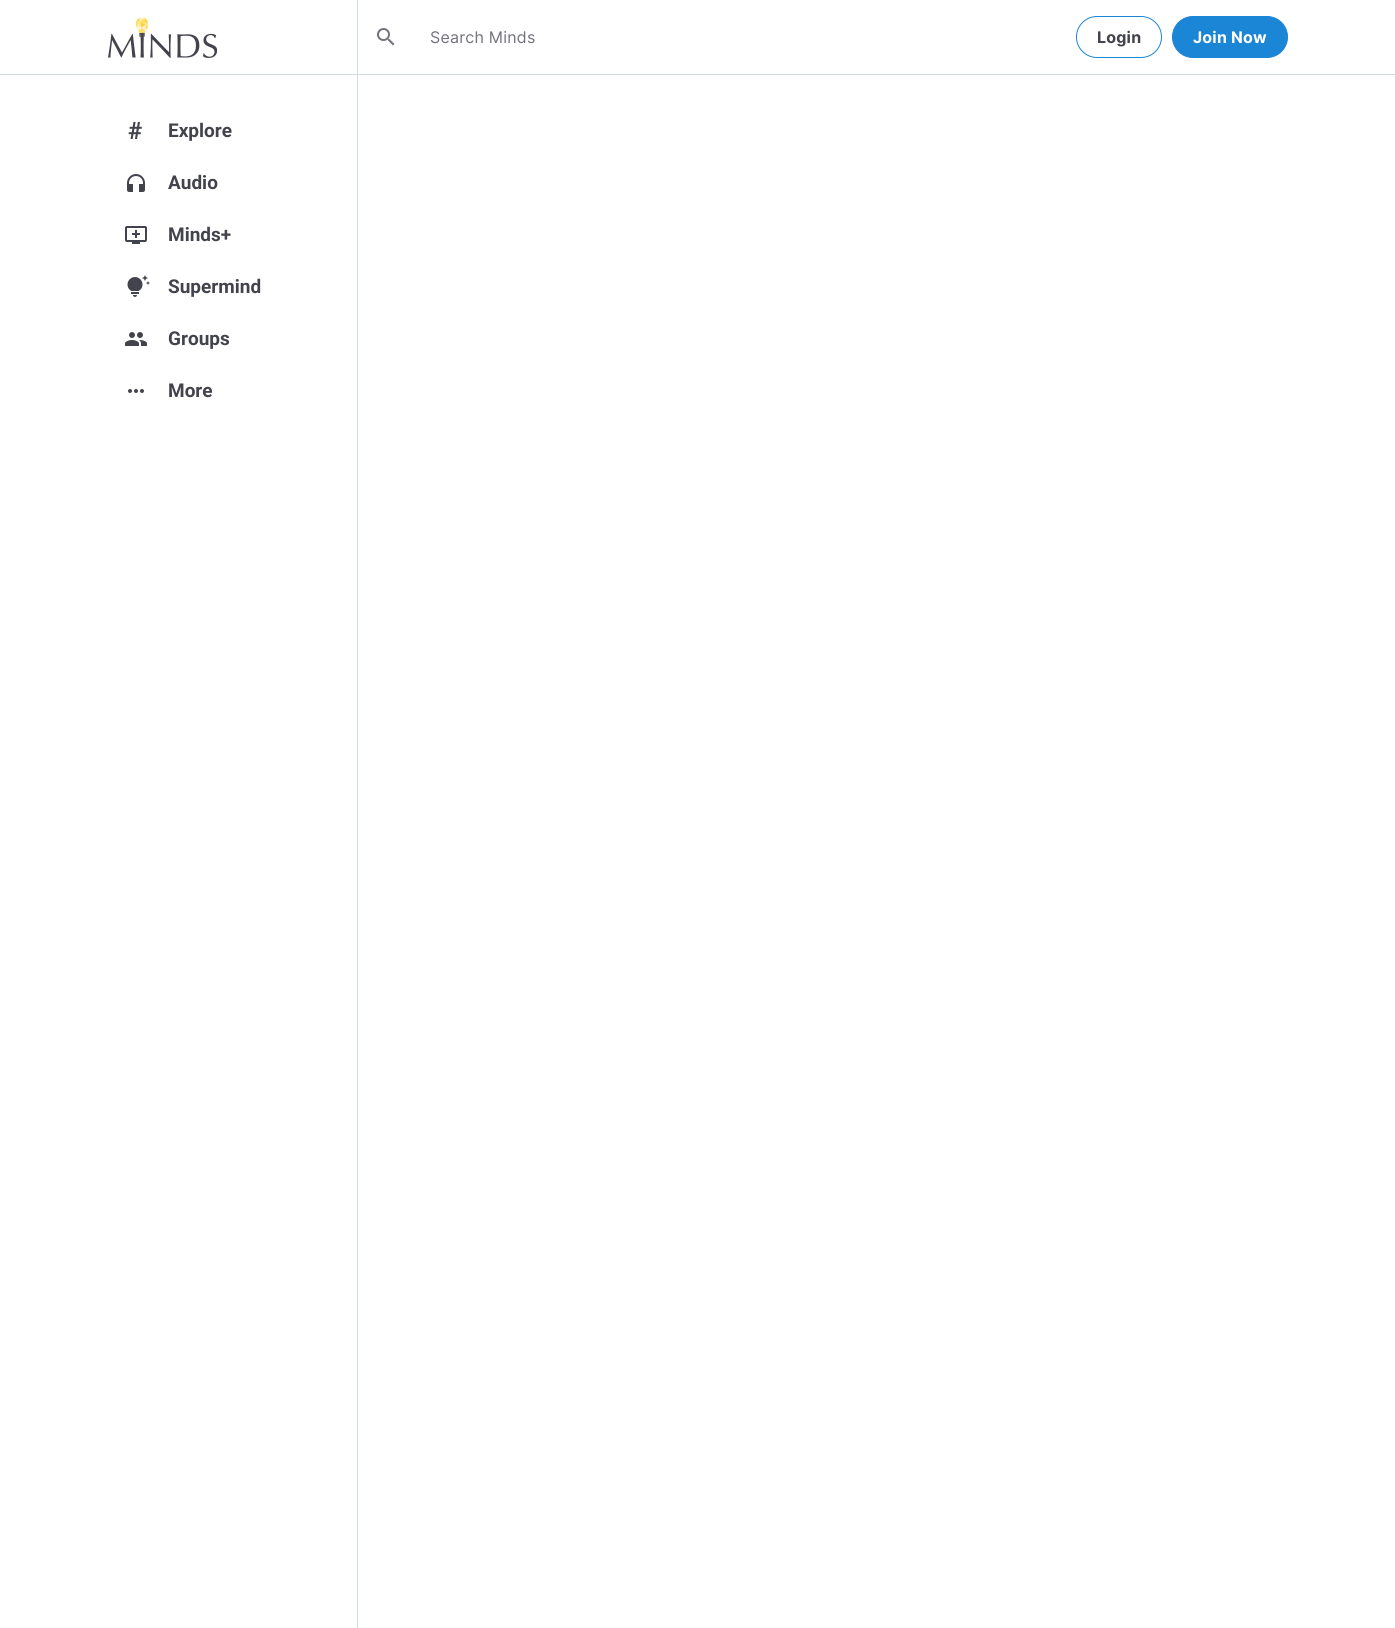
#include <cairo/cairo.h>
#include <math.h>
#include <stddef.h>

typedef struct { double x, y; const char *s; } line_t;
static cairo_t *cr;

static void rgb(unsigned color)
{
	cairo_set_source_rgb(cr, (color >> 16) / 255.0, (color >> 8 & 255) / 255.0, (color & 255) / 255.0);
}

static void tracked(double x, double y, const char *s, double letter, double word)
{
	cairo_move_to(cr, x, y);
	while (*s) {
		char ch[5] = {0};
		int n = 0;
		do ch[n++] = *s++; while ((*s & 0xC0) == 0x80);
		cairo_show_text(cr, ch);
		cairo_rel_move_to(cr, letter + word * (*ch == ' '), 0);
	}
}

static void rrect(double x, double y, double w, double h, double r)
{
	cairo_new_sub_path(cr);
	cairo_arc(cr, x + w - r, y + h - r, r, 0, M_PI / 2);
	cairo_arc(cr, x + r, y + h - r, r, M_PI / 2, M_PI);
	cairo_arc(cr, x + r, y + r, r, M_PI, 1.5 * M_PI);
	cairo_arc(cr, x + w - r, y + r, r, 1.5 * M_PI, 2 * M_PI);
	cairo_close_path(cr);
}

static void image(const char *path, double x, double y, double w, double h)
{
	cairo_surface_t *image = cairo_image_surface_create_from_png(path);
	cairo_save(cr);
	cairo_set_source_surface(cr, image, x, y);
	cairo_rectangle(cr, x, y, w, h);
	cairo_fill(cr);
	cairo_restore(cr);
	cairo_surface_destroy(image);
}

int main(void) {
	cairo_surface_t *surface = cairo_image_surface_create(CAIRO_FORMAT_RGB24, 1395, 1628);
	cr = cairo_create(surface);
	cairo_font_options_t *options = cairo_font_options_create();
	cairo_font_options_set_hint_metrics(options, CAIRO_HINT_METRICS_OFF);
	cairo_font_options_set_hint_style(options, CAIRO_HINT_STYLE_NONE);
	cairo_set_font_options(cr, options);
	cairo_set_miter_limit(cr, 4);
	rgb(0xffffff);
	cairo_paint(cr);
	rgb(0xd3dbe3);
	cairo_rectangle(cr, 0, 74, 1395, 1);
	cairo_fill(cr);
	cairo_rectangle(cr, 357, 0, 1, 74);
	cairo_fill(cr);
	image("img/1.png", 108, 17, 109, 41);
	image("img/2.png", 377, 28, 18, 18);
	rrect(1076.5, 16.5, 85, 41, 20.5);
	rgb(0x1b85d6);
	cairo_set_line_width(cr, 1);
	cairo_stroke(cr);
	rrect(1172.5, 16.5, 115, 41, 20.5);
	cairo_fill_preserve(cr);
	cairo_stroke(cr);
	rgb(0xd3dbe3);
	cairo_rectangle(cr, 357, 75, 1, 1553);
	cairo_fill(cr);
	image("img/3.png", 127, 174, 18, 18);
	image("img/4.png", 125, 226, 22, 18);
	image("img/5.png", 127, 275, 23, 22);
	image("img/6.png", 125, 332, 22, 14);
	image("img/7.png", 128, 389, 16, 4);
	cairo_select_font_face(cr, "Inter", CAIRO_FONT_SLANT_NORMAL, CAIRO_FONT_WEIGHT_NORMAL);
	cairo_set_font_size(cr, 16);
	rgb(0x72727c);
	tracked(430, 43, "Search Minds", 0.2, 0);
	cairo_select_font_face(cr, "Inter", CAIRO_FONT_SLANT_NORMAL, CAIRO_FONT_WEIGHT_BOLD);
	rgb(0x43434d);
	tracked(1097, 43, "Login", 0.2, 0);
	rgb(0xffffff);
	tracked(1193, 43, "Join Now", 0.2, 0);
	cairo_select_font_face(cr, "Roboto", CAIRO_FONT_SLANT_NORMAL, CAIRO_FONT_WEIGHT_BOLD);
	cairo_set_font_size(cr, 24);
	rgb(0x43434d);
	cairo_move_to(cr, 128, 139);
	cairo_show_text(cr, "#");
	cairo_set_font_size(cr, 19);
	{
		static const line_t items[] = {
			{168, 137, "Explore"},
			{168, 189, "Audio"},
			{168, 241, "Minds+"},
			{168, 293, "Supermind"},
			{168, 345, "Groups"},
			{168, 397, "More"},
		};
		for (size_t i = 0; i < sizeof items / sizeof *items; i++) {
			cairo_move_to(cr, items[i].x, items[i].y);
			cairo_show_text(cr, items[i].s);
		}
	}
	cairo_surface_write_to_png(surface, "page.png");
	cairo_font_options_destroy(options);
	cairo_destroy(cr);
	cairo_surface_destroy(surface);
	return 0;
}
